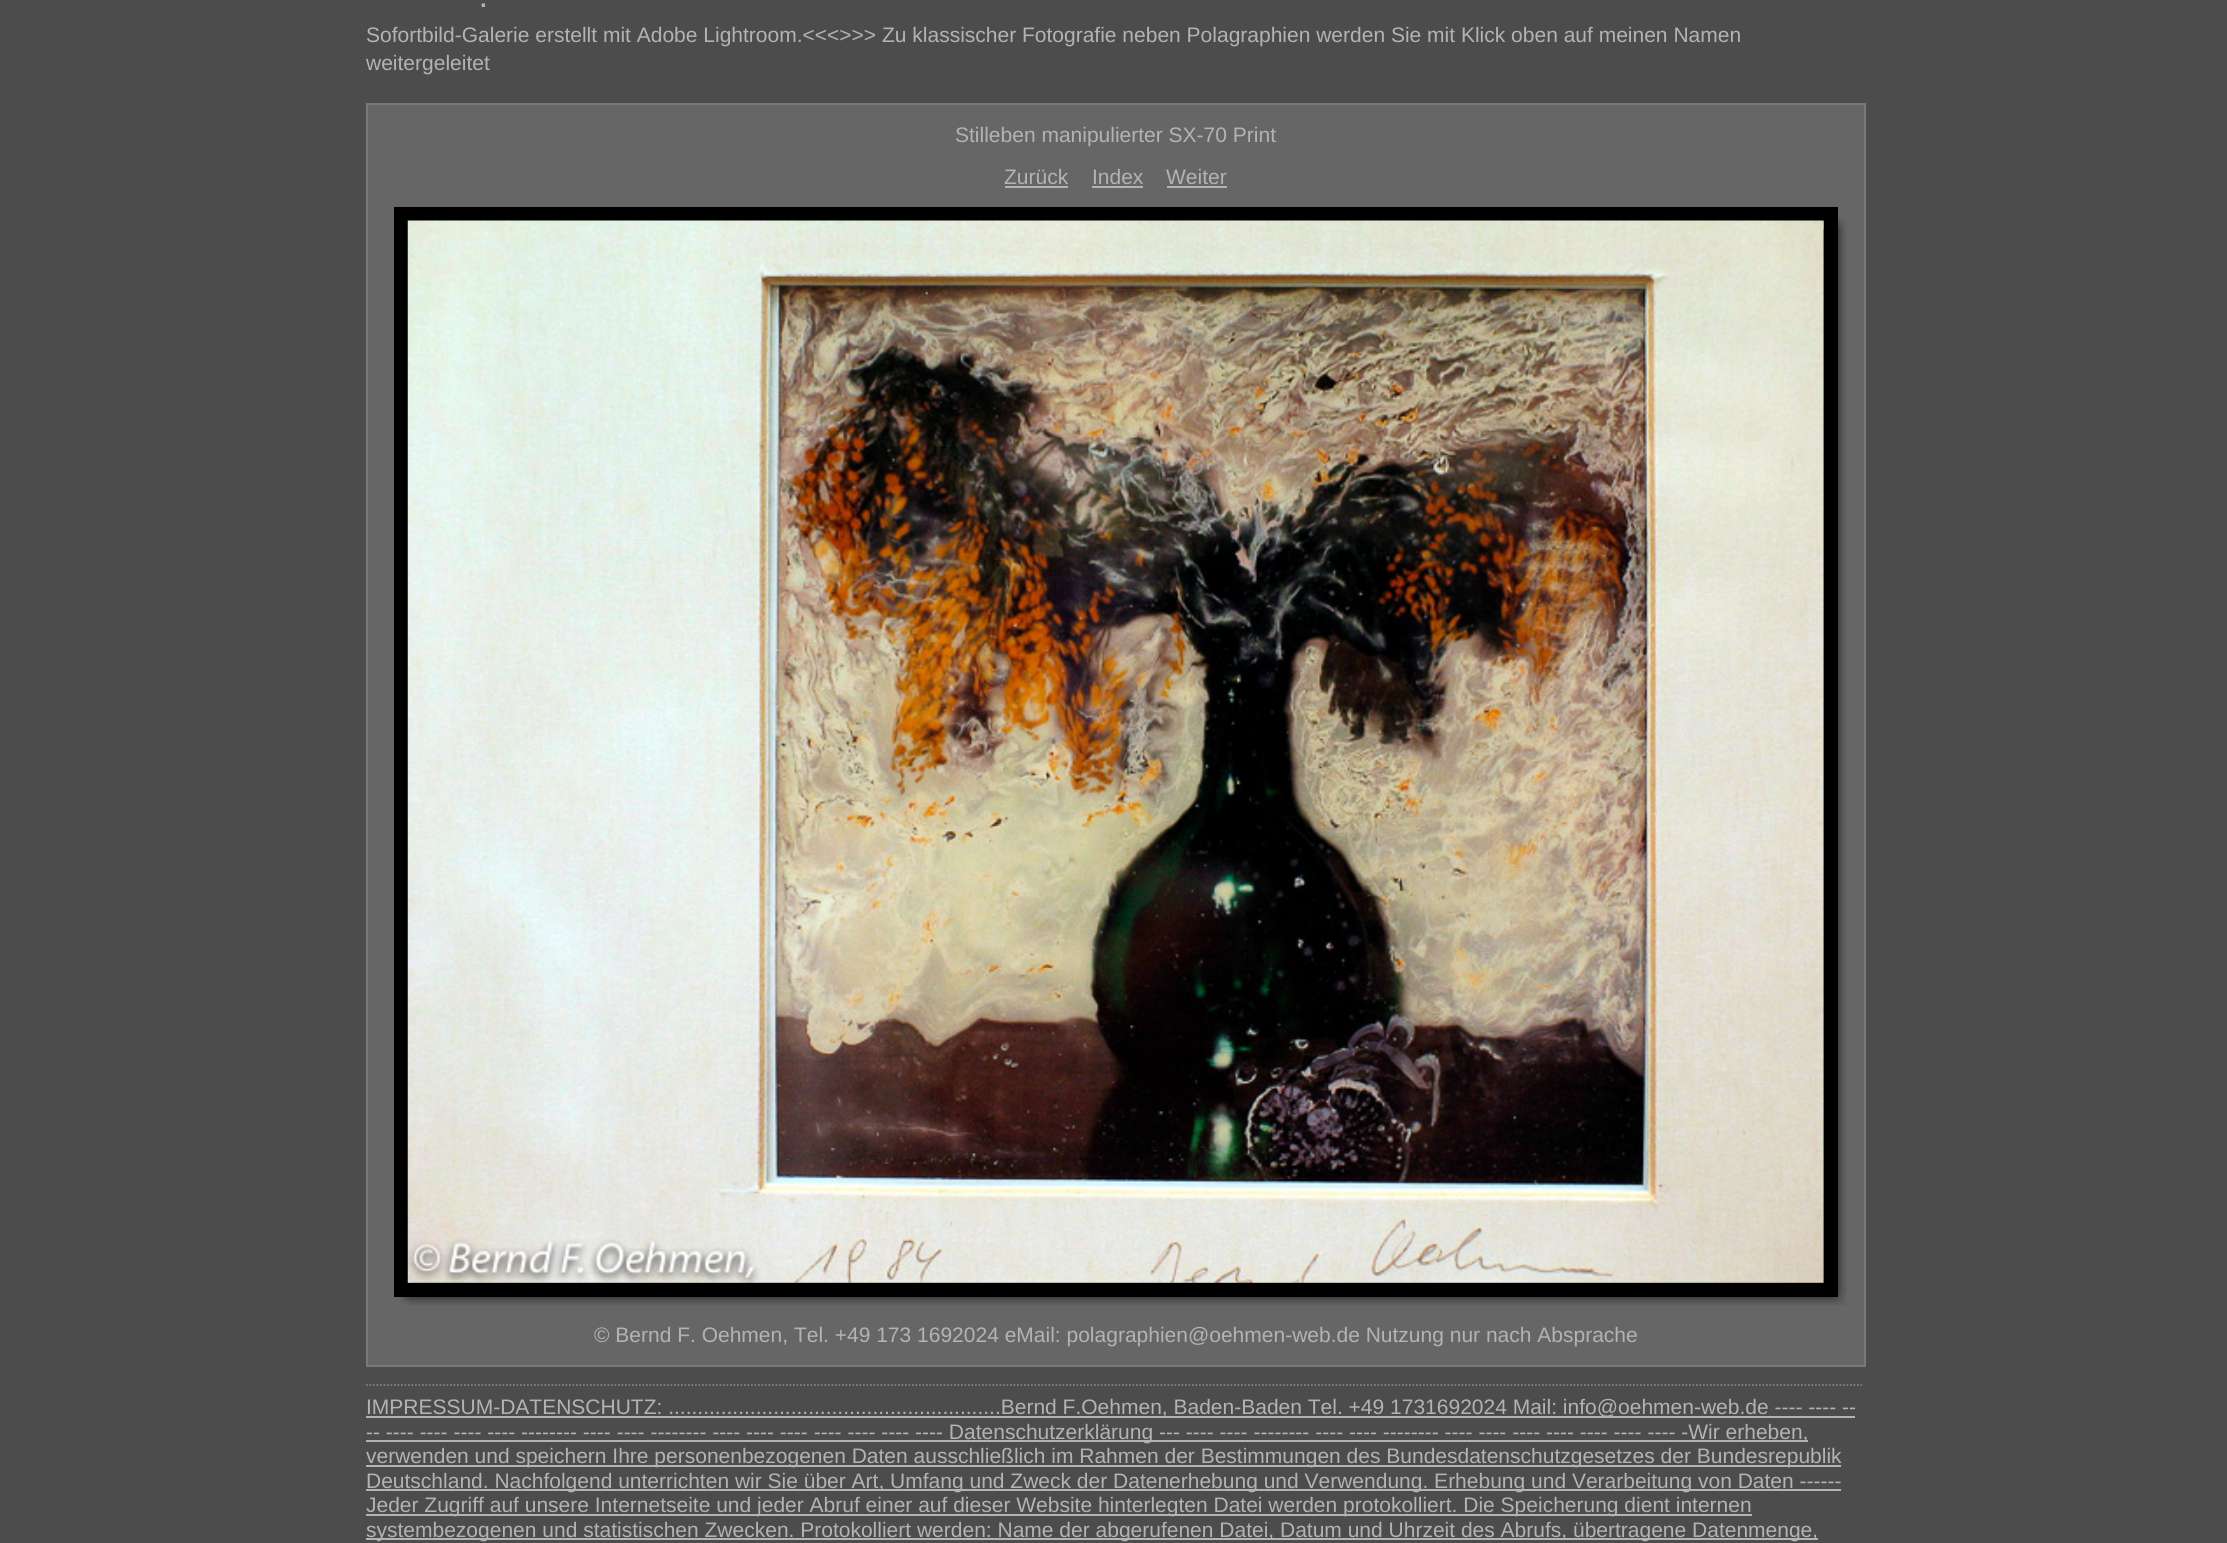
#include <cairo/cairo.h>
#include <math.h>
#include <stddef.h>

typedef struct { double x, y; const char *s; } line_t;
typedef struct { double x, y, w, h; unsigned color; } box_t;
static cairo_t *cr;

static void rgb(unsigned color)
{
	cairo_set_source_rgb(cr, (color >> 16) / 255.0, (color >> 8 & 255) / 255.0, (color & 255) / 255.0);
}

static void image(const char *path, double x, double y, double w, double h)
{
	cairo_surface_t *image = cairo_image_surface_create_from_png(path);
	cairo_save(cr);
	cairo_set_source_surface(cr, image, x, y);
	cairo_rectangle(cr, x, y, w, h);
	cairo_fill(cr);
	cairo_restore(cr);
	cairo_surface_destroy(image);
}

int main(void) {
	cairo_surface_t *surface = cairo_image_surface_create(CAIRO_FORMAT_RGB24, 2227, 1543);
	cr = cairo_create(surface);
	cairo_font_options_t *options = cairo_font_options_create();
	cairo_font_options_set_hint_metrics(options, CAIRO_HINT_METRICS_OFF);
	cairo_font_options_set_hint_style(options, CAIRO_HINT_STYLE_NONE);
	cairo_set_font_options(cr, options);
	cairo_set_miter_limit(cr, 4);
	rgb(0x4c4c4c);
	cairo_paint(cr);
	cairo_new_path(cr);
	cairo_move_to(cr, 366, 1385);
	cairo_line_to(cr, 1862, 1385);
	rgb(0x7f7f7f);
	cairo_set_line_width(cr, 1.8);
	cairo_set_dash(cr, (double[]){1.75, 1.75}, 2, 0);
	cairo_stroke(cr);
	rgb(0x666666);
	cairo_rectangle(cr, 367, 104, 1498, 1262);
	cairo_fill_preserve(cr);
	rgb(0x787878);
	cairo_set_line_width(cr, 2);
	cairo_set_dash(cr, NULL, 0, 0);
	cairo_stroke(cr);
	{
		static const box_t items[] = {
			{1005, 186, 63, 2, 0xb3b3b3},
			{1092, 186, 51, 2, 0xb3b3b3},
			{1167, 186, 60, 2, 0xb3b3b3},
		};
		for (size_t i = 0; i < sizeof items / sizeof *items; i++) {
			rgb(items[i].color);
			cairo_rectangle(cr, items[i].x, items[i].y, items[i].w, items[i].h);
			cairo_fill(cr);
		}
	}
	image("img/1.png", 411, 229, 1436, 1077);
	cairo_rectangle(cr, 401, 214, 1430, 1076);
	rgb(0x000000);
	cairo_set_line_width(cr, 14);
	cairo_stroke(cr);
	image("img/2.png", 407, 220, 1417, 1063);
	image("img/3.png", 1838, 217, 8, 13);
	image("img/4.png", 399, 1297, 13, 8);
	{
		static const box_t items[] = {
			{366, 1416, 1489, 2, 0xb3b3b3},
			{366, 1440, 1442, 2, 0xb3b3b3},
			{366, 1465, 1475, 2, 0xb3b3b3},
			{366, 1489, 1475, 2, 0xb3b3b3},
			{366, 1514, 1386, 2, 0xb3b3b3},
			{366, 1538, 1452, 2, 0xb3b3b3},
		};
		for (size_t i = 0; i < sizeof items / sizeof *items; i++) {
			rgb(items[i].color);
			cairo_rectangle(cr, items[i].x, items[i].y, items[i].w, items[i].h);
			cairo_fill(cr);
		}
	}
	cairo_select_font_face(cr, "Liberation Sans", CAIRO_FONT_SLANT_NORMAL, CAIRO_FONT_WEIGHT_BOLD);
	cairo_set_font_size(cr, 24);
	cairo_move_to(cr, 480, 7);
	cairo_show_text(cr, ".");
	cairo_select_font_face(cr, "Liberation Sans", CAIRO_FONT_SLANT_NORMAL, CAIRO_FONT_WEIGHT_NORMAL);
	cairo_set_font_size(cr, 21);
	{
		static const line_t items[] = {
			{366, 42, "Sofortbild-Galerie erstellt mit Adobe Lightroom.<<<>>> Zu klassischer Fotografie neben Polagraphien werden Sie mit Klick oben auf meinen Namen"},
			{366, 70, "weitergeleitet"},
			{955, 142, "Stilleben manipulierter SX-70 Print"},
			{1004, 184, "Zurück"},
			{1092, 184, "Index"},
			{1166, 184, "Weiter"},
			{594, 1342, "© Bernd F. Oehmen, Tel. +49 173 1692024 eMail: polagraphien@oehmen-web.de Nutzung nur nach Absprache"},
			{366, 1414, "IMPRESSUM-DATENSCHUTZ: .........................................................Bernd F.Oehmen, Baden-Baden Tel. +49 1731692024 Mail: info@oehmen-web.de ---- ---- --"},
			{366, 1439, "-- ---- ---- ---- ---- -------- ---- ---- -------- ---- ---- ---- ---- ---- ---- ---- Datenschutzerklärung --- ---- ---- -------- ---- ---- -------- ---- ---- ---- ---- ---- ---- ---- -Wir erheben,"},
			{366, 1463, "verwenden und speichern Ihre personenbezogenen Daten ausschließlich im Rahmen der Bestimmungen des Bundesdatenschutzgesetzes der Bundesrepublik"},
			{366, 1488, "Deutschland. Nachfolgend unterrichten wir Sie über Art, Umfang und Zweck der Datenerhebung und Verwendung. Erhebung und Verarbeitung von Daten ------"},
			{366, 1512, "Jeder Zugriff auf unsere Internetseite und jeder Abruf einer auf dieser Website hinterlegten Datei werden protokolliert. Die Speicherung dient internen"},
			{366, 1537, "systembezogenen und statistischen Zwecken. Protokolliert werden: Name der abgerufenen Datei, Datum und Uhrzeit des Abrufs, übertragene Datenmenge,"},
		};
		for (size_t i = 0; i < sizeof items / sizeof *items; i++) {
			cairo_move_to(cr, items[i].x, items[i].y);
			cairo_show_text(cr, items[i].s);
		}
	}
	cairo_surface_write_to_png(surface, "page.png");
	cairo_font_options_destroy(options);
	cairo_destroy(cr);
	cairo_surface_destroy(surface);
	return 0;
}
